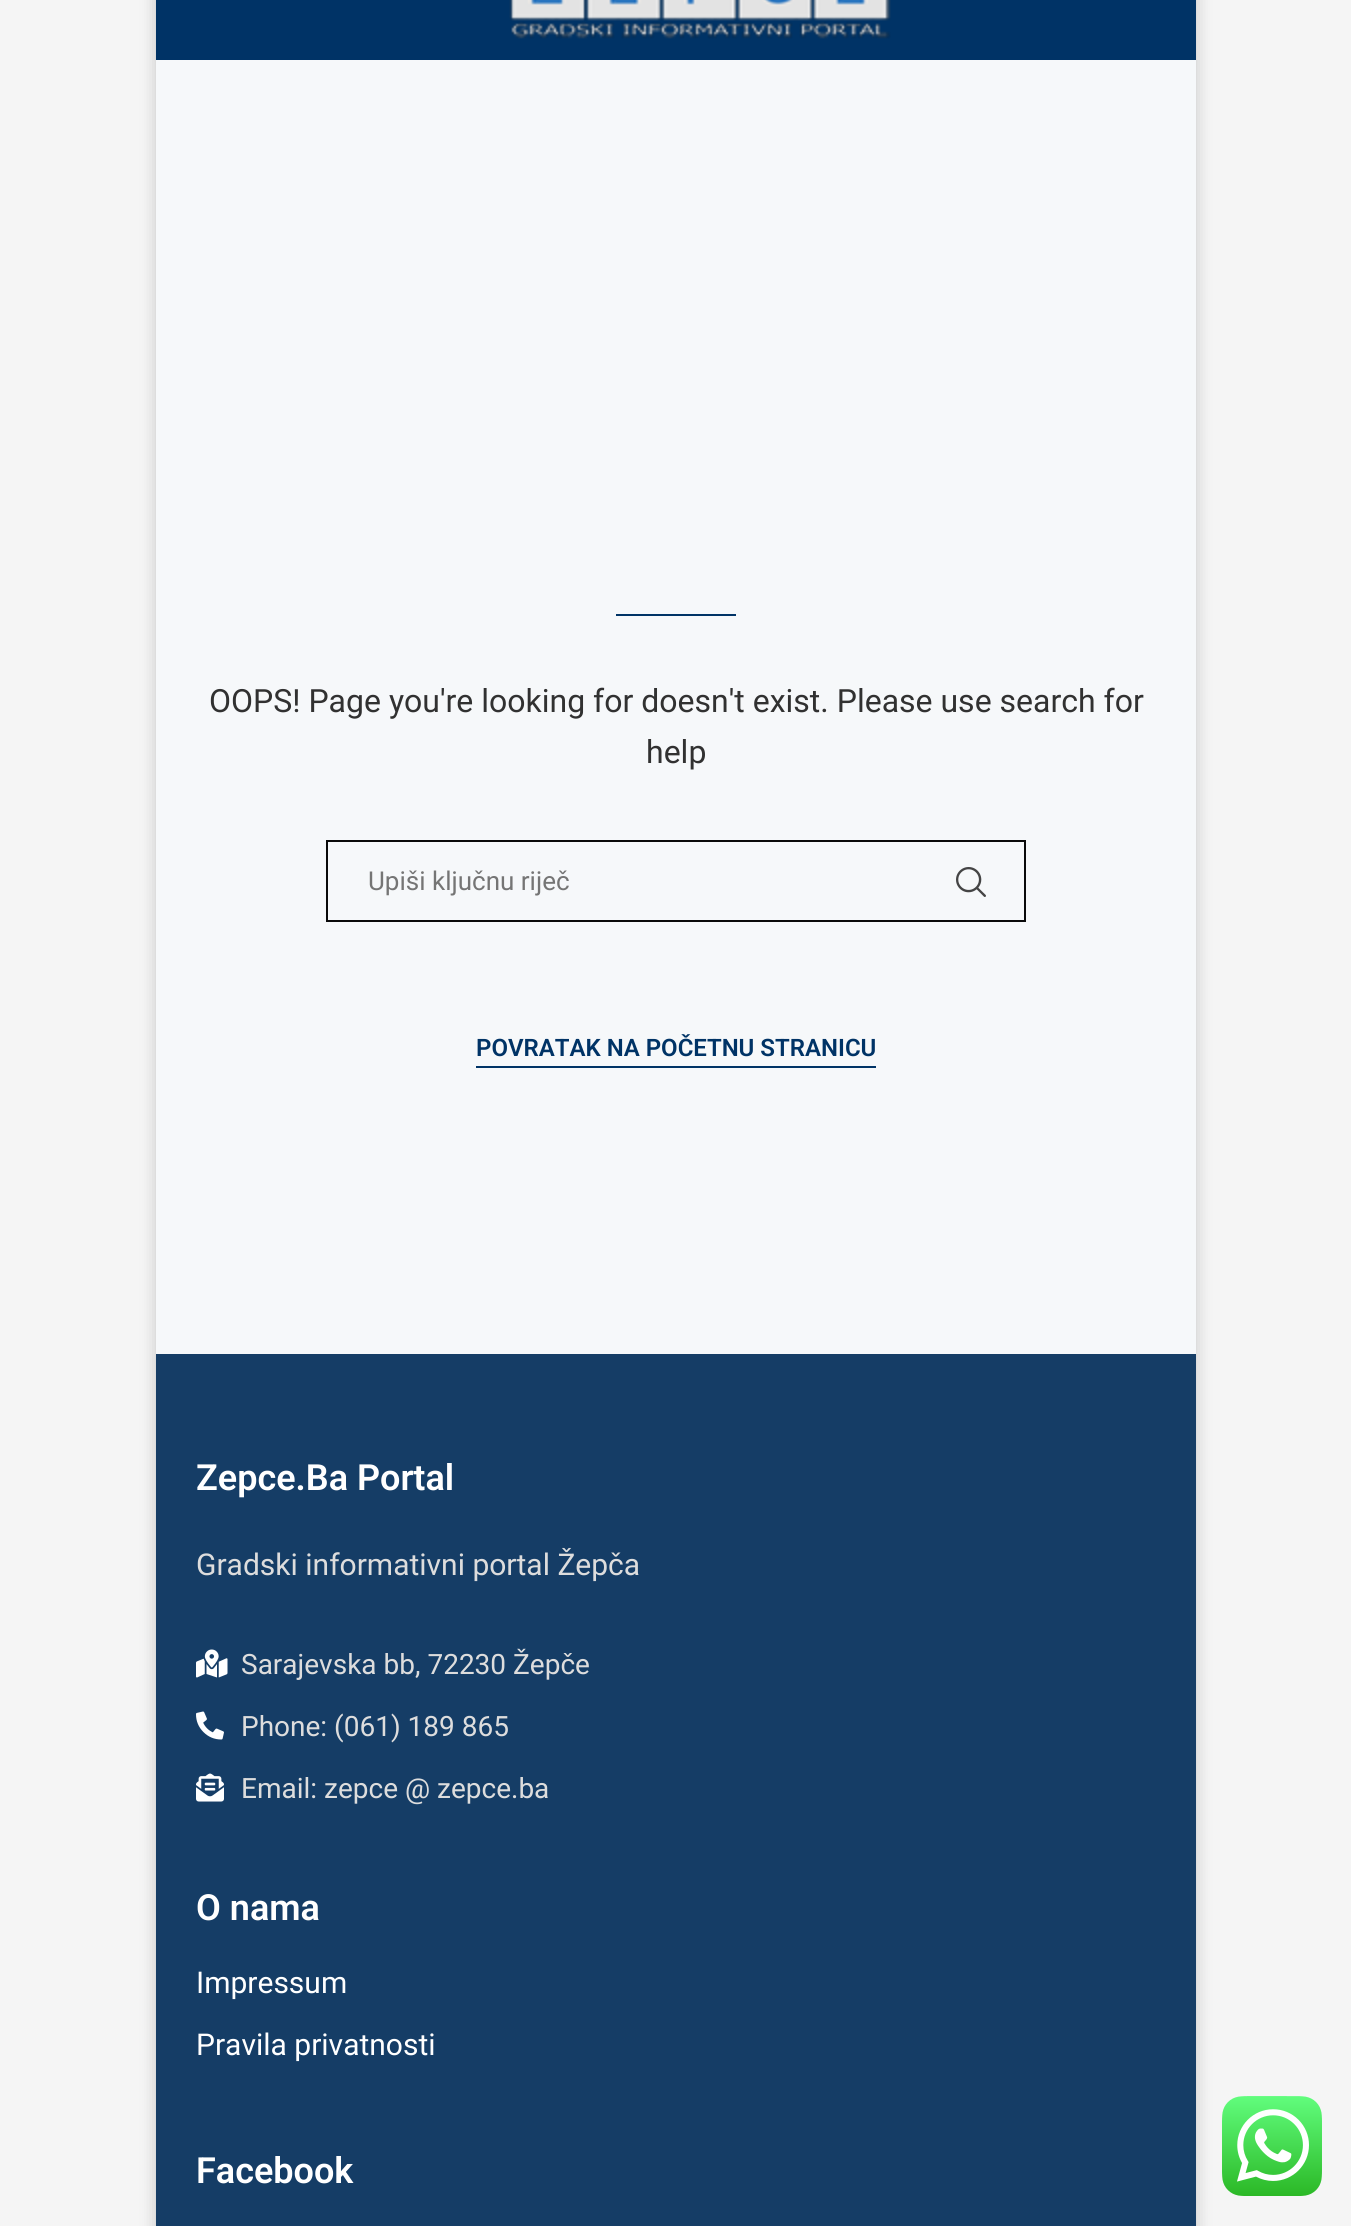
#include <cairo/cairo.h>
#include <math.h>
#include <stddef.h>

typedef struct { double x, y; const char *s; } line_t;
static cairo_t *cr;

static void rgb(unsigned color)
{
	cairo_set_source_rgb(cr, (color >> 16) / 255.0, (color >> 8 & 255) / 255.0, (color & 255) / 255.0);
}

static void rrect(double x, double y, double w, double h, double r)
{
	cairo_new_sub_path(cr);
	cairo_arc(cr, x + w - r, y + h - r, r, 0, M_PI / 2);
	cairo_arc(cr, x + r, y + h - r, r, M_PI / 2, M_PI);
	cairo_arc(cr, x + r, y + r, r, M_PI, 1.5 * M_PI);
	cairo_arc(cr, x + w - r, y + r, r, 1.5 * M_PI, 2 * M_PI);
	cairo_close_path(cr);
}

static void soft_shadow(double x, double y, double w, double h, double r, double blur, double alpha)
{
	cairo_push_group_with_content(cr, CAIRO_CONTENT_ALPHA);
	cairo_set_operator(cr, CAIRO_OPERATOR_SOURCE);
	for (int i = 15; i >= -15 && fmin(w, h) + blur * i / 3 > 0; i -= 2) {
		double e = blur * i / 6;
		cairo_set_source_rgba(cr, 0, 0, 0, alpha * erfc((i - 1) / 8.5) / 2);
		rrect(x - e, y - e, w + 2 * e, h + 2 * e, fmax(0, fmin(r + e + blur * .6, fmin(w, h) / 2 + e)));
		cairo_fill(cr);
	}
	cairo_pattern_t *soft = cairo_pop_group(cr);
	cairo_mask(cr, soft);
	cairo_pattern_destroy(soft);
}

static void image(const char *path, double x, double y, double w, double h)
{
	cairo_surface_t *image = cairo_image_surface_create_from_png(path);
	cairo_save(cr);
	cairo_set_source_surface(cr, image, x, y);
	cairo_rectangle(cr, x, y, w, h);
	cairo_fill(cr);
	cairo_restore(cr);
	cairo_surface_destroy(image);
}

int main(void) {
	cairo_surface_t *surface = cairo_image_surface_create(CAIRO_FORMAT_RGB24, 1351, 2226);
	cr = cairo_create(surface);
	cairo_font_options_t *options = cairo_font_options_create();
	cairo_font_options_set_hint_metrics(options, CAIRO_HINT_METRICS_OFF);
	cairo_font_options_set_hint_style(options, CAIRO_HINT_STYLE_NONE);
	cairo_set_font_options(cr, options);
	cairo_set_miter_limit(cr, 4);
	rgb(0xf5f5f5);
	cairo_paint(cr);
	rgb(0x000000);
	soft_shadow(156, -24, 1040, 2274, 0, 8, 0.2);
	rgb(0xf6f8fa);
	cairo_rectangle(cr, 156, 60, 1040, 1294);
	cairo_fill(cr);
	rgb(0x003366);
	cairo_rectangle(cr, 156, 0, 1040, 60);
	cairo_fill(cr);
	image("img/1.png", 509, 0, 382, 39);
	cairo_rectangle(cr, 616, 614, 120, 2);
	cairo_fill(cr);
	cairo_rectangle(cr, 327, 841, 698, 80);
	rgb(0x0a0a0a);
	cairo_stroke(cr);
	image("img/2.png", 956, 867, 30, 30);
	rgb(0x003366);
	cairo_rectangle(cr, 476, 1066, 400, 2);
	cairo_fill(cr);
	rgb(0x153d66);
	cairo_rectangle(cr, 156, 1354, 1040, 872);
	cairo_fill(cr);
	image("img/3.png", 196, 1649, 32, 29);
	image("img/4.png", 196, 1711, 28, 29);
	image("img/5.png", 196, 1773, 28, 29);
	image("img/6.png", 1222, 2096, 100, 100);
	cairo_select_font_face(cr, "Roboto", CAIRO_FONT_SLANT_NORMAL, CAIRO_FONT_WEIGHT_NORMAL);
	cairo_set_font_size(cr, 32);
	rgb(0x313131);
	cairo_move_to(cr, 209, 712);
	cairo_show_text(cr, "OOPS! Page you're looking for doesn't exist. Please use search for");
	cairo_move_to(cr, 646, 763);
	cairo_show_text(cr, "help");
	cairo_set_font_size(cr, 26);
	rgb(0x757575);
	cairo_move_to(cr, 368, 890);
	cairo_show_text(cr, "Upiši ključnu riječ");
	cairo_select_font_face(cr, "Roboto SemiBold", CAIRO_FONT_SLANT_NORMAL, CAIRO_FONT_WEIGHT_NORMAL);
	cairo_set_font_size(cr, 24);
	rgb(0x003366);
	cairo_move_to(cr, 476, 1056);
	cairo_show_text(cr, "POVRATAK NA POČETNU STRANICU");
	cairo_set_font_size(cr, 36);
	rgb(0xffffff);
	cairo_move_to(cr, 196, 1490);
	cairo_show_text(cr, "Zepce.Ba Portal");
	cairo_select_font_face(cr, "Roboto", CAIRO_FONT_SLANT_NORMAL, CAIRO_FONT_WEIGHT_NORMAL);
	cairo_set_font_size(cr, 30);
	rgb(0xdddddd);
	cairo_move_to(cr, 196, 1575);
	cairo_show_text(cr, "Gradski informativni portal Žepča");
	cairo_set_font_size(cr, 28);
	{
		static const line_t items[] = {
			{241, 1674, "Sarajevska bb, 72230 Žepče"},
			{241, 1736, "Phone: (061) 189 865"},
			{241, 1798, "Email: zepce @ zepce.ba"},
		};
		for (size_t i = 0; i < sizeof items / sizeof *items; i++) {
			cairo_move_to(cr, items[i].x, items[i].y);
			cairo_show_text(cr, items[i].s);
		}
	}
	cairo_select_font_face(cr, "Roboto SemiBold", CAIRO_FONT_SLANT_NORMAL, CAIRO_FONT_WEIGHT_NORMAL);
	cairo_set_font_size(cr, 36);
	rgb(0xffffff);
	cairo_move_to(cr, 196, 1920);
	cairo_show_text(cr, "O nama");
	cairo_select_font_face(cr, "Roboto", CAIRO_FONT_SLANT_NORMAL, CAIRO_FONT_WEIGHT_NORMAL);
	cairo_set_font_size(cr, 30);
	cairo_move_to(cr, 196, 1993);
	cairo_show_text(cr, "Impressum");
	cairo_move_to(cr, 196, 2055);
	cairo_show_text(cr, "Pravila privatnosti");
	cairo_select_font_face(cr, "Roboto SemiBold", CAIRO_FONT_SLANT_NORMAL, CAIRO_FONT_WEIGHT_NORMAL);
	cairo_set_font_size(cr, 36);
	cairo_move_to(cr, 196, 2183);
	cairo_show_text(cr, "Facebook");
	cairo_surface_write_to_png(surface, "page.png");
	cairo_font_options_destroy(options);
	cairo_destroy(cr);
	cairo_surface_destroy(surface);
	return 0;
}
